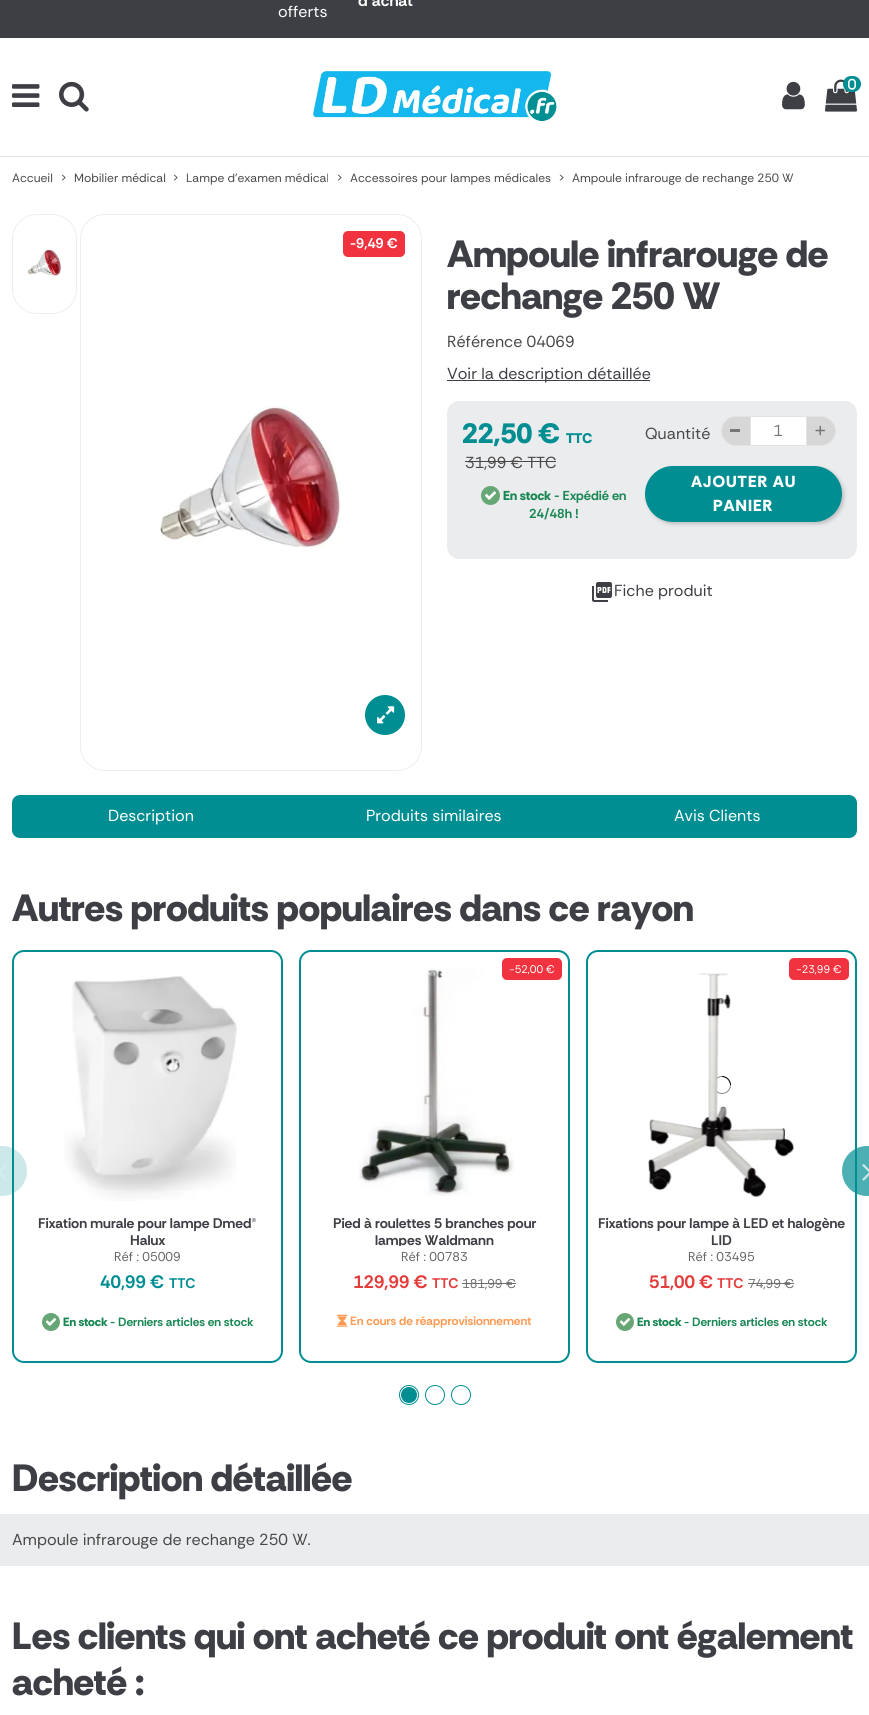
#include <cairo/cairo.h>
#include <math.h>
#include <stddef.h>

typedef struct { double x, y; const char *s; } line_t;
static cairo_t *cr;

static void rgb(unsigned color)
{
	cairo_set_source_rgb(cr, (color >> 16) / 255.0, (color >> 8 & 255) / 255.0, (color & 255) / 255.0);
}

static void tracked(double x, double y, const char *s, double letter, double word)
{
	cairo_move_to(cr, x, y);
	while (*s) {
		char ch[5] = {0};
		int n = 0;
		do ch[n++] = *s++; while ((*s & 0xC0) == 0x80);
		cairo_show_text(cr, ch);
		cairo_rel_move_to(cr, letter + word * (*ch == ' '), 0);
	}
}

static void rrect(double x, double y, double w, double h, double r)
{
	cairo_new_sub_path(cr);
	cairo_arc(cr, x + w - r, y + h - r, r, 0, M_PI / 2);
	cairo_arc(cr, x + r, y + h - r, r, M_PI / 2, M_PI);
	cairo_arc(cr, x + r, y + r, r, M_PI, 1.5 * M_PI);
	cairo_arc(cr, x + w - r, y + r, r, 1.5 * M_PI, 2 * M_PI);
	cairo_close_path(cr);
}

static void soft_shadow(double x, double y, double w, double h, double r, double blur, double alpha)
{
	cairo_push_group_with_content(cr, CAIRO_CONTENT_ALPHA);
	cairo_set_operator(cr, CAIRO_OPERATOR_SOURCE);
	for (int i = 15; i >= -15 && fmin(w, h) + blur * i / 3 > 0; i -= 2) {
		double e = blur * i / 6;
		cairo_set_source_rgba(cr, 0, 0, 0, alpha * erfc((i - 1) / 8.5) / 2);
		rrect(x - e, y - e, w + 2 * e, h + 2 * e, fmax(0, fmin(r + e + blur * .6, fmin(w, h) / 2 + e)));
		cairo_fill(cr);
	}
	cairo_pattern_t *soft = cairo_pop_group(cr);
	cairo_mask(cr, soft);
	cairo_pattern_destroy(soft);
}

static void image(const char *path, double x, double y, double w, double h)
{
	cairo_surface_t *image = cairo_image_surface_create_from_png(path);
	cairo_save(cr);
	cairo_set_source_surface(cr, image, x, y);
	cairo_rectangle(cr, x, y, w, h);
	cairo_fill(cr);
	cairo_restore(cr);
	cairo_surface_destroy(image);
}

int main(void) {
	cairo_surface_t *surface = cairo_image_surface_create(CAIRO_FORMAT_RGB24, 869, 1715);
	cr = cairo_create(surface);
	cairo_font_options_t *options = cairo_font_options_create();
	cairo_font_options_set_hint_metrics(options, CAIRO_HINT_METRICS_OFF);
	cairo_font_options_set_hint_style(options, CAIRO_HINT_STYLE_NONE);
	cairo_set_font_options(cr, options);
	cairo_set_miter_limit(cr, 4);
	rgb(0xffffff);
	cairo_paint(cr);
	rgb(0x3d3f44);
	cairo_rectangle(cr, 0, 0, 869, 38);
	cairo_fill(cr);
	rgb(0xe3e3e3);
	cairo_rectangle(cr, 0, 156, 869, 1);
	cairo_fill(cr);
	image("img/1.png", 12, 84, 28, 23);
	image("img/2.png", 59, 81, 30, 31);
	image("img/3.png", 312, 70, 245, 52);
	image("img/4.png", 782, 81, 23, 29);
	image("img/6.png", 825, 79, 32, 33);
	rgb(0x008e93);
	rrect(843, 76, 18, 16, 8);
	cairo_fill(cr);
	image("img/5.png", 848, 78, 8, 12);
	rrect(12.5, 214.5, 64, 99, 24.5);
	rgb(0xededed);
	cairo_set_line_width(cr, 1);
	cairo_stroke(cr);
	image("img/7.png", 13, 233, 63, 62);
	rrect(80.5, 214.5, 341, 556, 24.5);
	cairo_stroke(cr);
	rgb(0xf13340);
	rrect(343, 231, 62, 26, 5);
	cairo_fill(cr);
	image("img/8.png", 160, 406, 182, 142);
	rgb(0x008e93);
	cairo_arc(cr, 385, 715, 20, 0, 2 * M_PI);
	cairo_fill(cr);
	image("img/9.png", 377, 706, 18, 18);
	rgb(0x3d3f44);
	cairo_rectangle(cr, 447, 380, 203, 1);
	cairo_fill(cr);
	rgb(0xebecee);
	rrect(447, 401, 410, 158, 12);
	cairo_fill(cr);
	rgb(0x484848);
	cairo_rectangle(cr, 465, 461, 91, 1);
	cairo_fill(cr);
	rgb(0x67a675);
	cairo_arc(cr, 490.5, 495.5, 9.5, 0, 2 * M_PI);
	cairo_fill(cr);
	image("img/10.png", 484, 491, 12, 9);
	rgb(0xffffff);
	cairo_rectangle(cr, 751, 417, 55, 28);
	cairo_fill(cr);
	cairo_rectangle(cr, 733.5, 416.5, 90, 29);
	rgb(0xe3e3e3);
	cairo_stroke(cr);
	rgb(0xd7d7d7);
	cairo_new_path(cr);
	cairo_move_to(cr, 736, 416.5);
	cairo_line_to(cr, 750.5, 416.5);
	cairo_line_to(cr, 750.5, 445.5);
	cairo_line_to(cr, 736, 445.5);
	cairo_curve_to(cr, 728, 445.5, 721.5, 439, 721.5, 431);
	cairo_curve_to(cr, 721.5, 423, 728, 416.5, 736, 416.5);
	cairo_close_path(cr);
	cairo_fill_preserve(cr);
	rgb(0xe3e3e3);
	cairo_stroke(cr);
	rgb(0x777777);
	cairo_rectangle(cr, 730, 429, 10, 3);
	cairo_fill(cr);
	rgb(0xd7d7d7);
	cairo_new_path(cr);
	cairo_move_to(cr, 806.5, 416.5);
	cairo_line_to(cr, 821, 416.5);
	cairo_curve_to(cr, 829, 416.5, 835.5, 423, 835.5, 431);
	cairo_curve_to(cr, 835.5, 439, 829, 445.5, 821, 445.5);
	cairo_line_to(cr, 806.5, 445.5);
	cairo_close_path(cr);
	cairo_fill_preserve(cr);
	rgb(0xe3e3e3);
	cairo_stroke(cr);
	image("img/11.png", 815, 425, 10, 11);
	rgb(0x000000);
	soft_shadow(647, 468, 197, 56, 28, 2, 0.2);
	rgb(0x008e93);
	rrect(645, 466, 197, 56, 28);
	cairo_fill(cr);
	image("img/12.png", 592, 582, 20, 20);
	rrect(12, 795, 845, 43, 8);
	cairo_fill(cr);
	rrect(13, 951, 269, 411, 11);
	cairo_set_line_width(cr, 2);
	cairo_stroke(cr);
	cairo_set_source_rgba(cr, 0, 0.557, 0.576, 0.2);
	cairo_arc(cr, 2, 1171, 25, 0, 2 * M_PI);
	cairo_fill(cr);
	image("img/13.png", 0, 1164, 7, 17);
	image("img/14.png", 64, 976, 173, 225);
	rgb(0x67a675);
	cairo_arc(cr, 51, 1322, 9, 0, 2 * M_PI);
	cairo_fill(cr);
	image("img/15.png", 45, 1318, 12, 8);
	rrect(300, 951, 269, 411, 11);
	rgb(0x008e93);
	cairo_stroke(cr);
	image("img/16.png", 358, 968, 157, 228);
	rgb(0xf13340);
	rrect(502, 958, 60, 22, 5);
	cairo_fill(cr);
	rgb(0x6d6d6d);
	cairo_rectangle(cr, 462, 1283, 54, 1);
	cairo_fill(cr);
	image("img/17.png", 337, 1314, 11, 13);
	rrect(587, 951, 269, 411, 11);
	rgb(0x008e93);
	cairo_stroke(cr);
	cairo_arc(cr, 722, 1085, 8.5, 0, 2 * M_PI);
	rgb(0x808080);
	cairo_set_line_width(cr, 0.9);
	cairo_stroke(cr);
	cairo_new_path(cr);
	cairo_move_to(cr, 730.5, 1085);
	cairo_curve_to(cr, 730.5, 1080.5, 726.5, 1076.5, 722, 1076.5);
	rgb(0x000000);
	cairo_stroke(cr);
	image("img/18.png", 648, 973, 146, 225);
	rgb(0xf13340);
	rrect(789, 958, 60, 22, 5);
	cairo_fill(cr);
	rgb(0x6d6d6d);
	cairo_rectangle(cr, 748, 1283, 46, 1);
	cairo_fill(cr);
	rgb(0x67a675);
	cairo_arc(cr, 625, 1322, 9, 0, 2 * M_PI);
	cairo_fill(cr);
	image("img/15.png", 619, 1318, 12, 8);
	cairo_set_source_rgba(cr, 0, 0.557, 0.576, 0.7);
	cairo_arc(cr, 867, 1171, 25, 0, 2 * M_PI);
	cairo_fill(cr);
	image("img/19.png", 862, 1164, 7, 17);
	rgb(0x008e93);
	cairo_arc(cr, 409, 1395, 8.5, 0, 2 * M_PI);
	cairo_fill_preserve(cr);
	rgb(0xffffff);
	cairo_set_line_width(cr, 1);
	cairo_stroke(cr);
	cairo_arc(cr, 409, 1395, 9.5, 0, 2 * M_PI);
	rgb(0x008e93);
	cairo_stroke(cr);
	cairo_arc(cr, 435, 1395, 9.5, 0, 2 * M_PI);
	cairo_stroke(cr);
	cairo_arc(cr, 461, 1395, 9.5, 0, 2 * M_PI);
	cairo_stroke(cr);
	rgb(0xebecee);
	cairo_rectangle(cr, 0, 1514, 869, 52);
	cairo_fill(cr);
	cairo_select_font_face(cr, "Rethink Sans", CAIRO_FONT_SLANT_NORMAL, CAIRO_FONT_WEIGHT_BOLD);
	cairo_set_font_size(cr, 16);
	rgb(0xffffff);
	cairo_move_to(cr, 358, 6);
	cairo_show_text(cr, "d’achat");
	cairo_select_font_face(cr, "Rethink Sans", CAIRO_FONT_SLANT_NORMAL, CAIRO_FONT_WEIGHT_NORMAL);
	cairo_move_to(cr, 278, 17);
	cairo_show_text(cr, "offerts");
	cairo_set_font_size(cr, 12);
	rgb(0x484848);
	{
		static const line_t items[] = {
			{12, 182, "Accueil"},
			{60, 182, ">"},
			{74, 182, "Mobilier médical"},
			{172, 182, ">"},
			{186, 182, "Lampe d'examen médical"},
			{336, 182, ">"},
			{350, 182, "Accessoires pour lampes médicales"},
			{558, 182, ">"},
			{572, 182, "Ampoule infrarouge de rechange 250 W"},
		};
		for (size_t i = 0; i < sizeof items / sizeof *items; i++) {
			cairo_move_to(cr, items[i].x, items[i].y);
			cairo_show_text(cr, items[i].s);
		}
	}
	cairo_select_font_face(cr, "Rethink Sans", CAIRO_FONT_SLANT_NORMAL, CAIRO_FONT_WEIGHT_BOLD);
	cairo_set_font_size(cr, 14);
	rgb(0xffffff);
	cairo_move_to(cr, 350, 248);
	cairo_show_text(cr, "-9,49 €");
	cairo_select_font_face(cr, "Rethink Sans ExtraBold", CAIRO_FONT_SLANT_NORMAL, CAIRO_FONT_WEIGHT_NORMAL);
	cairo_set_font_size(cr, 38);
	rgb(0x3d3f44);
	cairo_move_to(cr, 447, 267);
	cairo_show_text(cr, "Ampoule infrarouge de");
	cairo_move_to(cr, 447, 309);
	cairo_show_text(cr, "rechange 250 W");
	cairo_select_font_face(cr, "Rethink Sans", CAIRO_FONT_SLANT_NORMAL, CAIRO_FONT_WEIGHT_NORMAL);
	cairo_set_font_size(cr, 16);
	rgb(0x484848);
	cairo_move_to(cr, 447, 347);
	cairo_show_text(cr, "Référence 04069");
	rgb(0x3d3f44);
	cairo_move_to(cr, 447, 379);
	cairo_show_text(cr, "Voir la description détaillée");
	cairo_select_font_face(cr, "Rethink Sans ExtraBold", CAIRO_FONT_SLANT_NORMAL, CAIRO_FONT_WEIGHT_NORMAL);
	cairo_set_font_size(cr, 28);
	rgb(0x008e93);
	cairo_move_to(cr, 462, 443);
	cairo_show_text(cr, "22,50 €");
	cairo_set_font_size(cr, 14);
	cairo_move_to(cr, 566, 443);
	cairo_show_text(cr, "TTC");
	cairo_select_font_face(cr, "Rethink Sans", CAIRO_FONT_SLANT_NORMAL, CAIRO_FONT_WEIGHT_NORMAL);
	cairo_set_font_size(cr, 16);
	rgb(0x484848);
	cairo_move_to(cr, 465, 468);
	cairo_show_text(cr, "31,99 € TTC");
	cairo_select_font_face(cr, "Rethink Sans ExtraBold", CAIRO_FONT_SLANT_NORMAL, CAIRO_FONT_WEIGHT_NORMAL);
	cairo_set_font_size(cr, 13);
	rgb(0x198754);
	cairo_move_to(cr, 503, 500);
	cairo_show_text(cr, "En stock");
	cairo_select_font_face(cr, "Rethink Sans", CAIRO_FONT_SLANT_NORMAL, CAIRO_FONT_WEIGHT_BOLD);
	cairo_move_to(cr, 554, 500);
	cairo_show_text(cr, "- Expédié en");
	cairo_move_to(cr, 529, 518);
	cairo_show_text(cr, "24/48h !");
	cairo_select_font_face(cr, "Rethink Sans", CAIRO_FONT_SLANT_NORMAL, CAIRO_FONT_WEIGHT_NORMAL);
	cairo_set_font_size(cr, 16);
	rgb(0x484848);
	cairo_move_to(cr, 645, 439);
	cairo_show_text(cr, "Quantité");
	rgb(0x777777);
	cairo_move_to(cr, 773, 436);
	cairo_show_text(cr, "1");
	cairo_select_font_face(cr, "Rethink Sans ExtraBold", CAIRO_FONT_SLANT_NORMAL, CAIRO_FONT_WEIGHT_NORMAL);
	rgb(0xffffff);
	tracked(691, 487, "AJOUTER AU", 1, 0);
	tracked(713, 511, "PANIER", 1, 0);
	cairo_select_font_face(cr, "Rethink Sans", CAIRO_FONT_SLANT_NORMAL, CAIRO_FONT_WEIGHT_NORMAL);
	rgb(0x3d3f44);
	cairo_move_to(cr, 614, 596);
	cairo_show_text(cr, "Fiche produit");
	rgb(0xffffff);
	{
		static const line_t items[] = {
			{108, 821, "Description"},
			{366, 821, "Produits similaires"},
			{674, 821, "Avis Clients"},
		};
		for (size_t i = 0; i < sizeof items / sizeof *items; i++) {
			cairo_move_to(cr, items[i].x, items[i].y);
			cairo_show_text(cr, items[i].s);
		}
	}
	cairo_select_font_face(cr, "Rethink Sans ExtraBold", CAIRO_FONT_SLANT_NORMAL, CAIRO_FONT_WEIGHT_NORMAL);
	cairo_set_font_size(cr, 38);
	rgb(0x3d3f44);
	cairo_move_to(cr, 12, 921);
	cairo_show_text(cr, "Autres produits populaires dans ce rayon");
	cairo_select_font_face(cr, "Rethink Sans", CAIRO_FONT_SLANT_NORMAL, CAIRO_FONT_WEIGHT_BOLD);
	cairo_set_font_size(cr, 14);
	cairo_move_to(cr, 38, 1228);
	cairo_show_text(cr, "Fixation murale pour lampe Dmed®");
	cairo_move_to(cr, 130, 1245);
	cairo_show_text(cr, "Halux");
	cairo_select_font_face(cr, "Rethink Sans", CAIRO_FONT_SLANT_NORMAL, CAIRO_FONT_WEIGHT_NORMAL);
	cairo_set_font_size(cr, 12.75);
	rgb(0x646569);
	cairo_move_to(cr, 114, 1261);
	cairo_show_text(cr, "Réf : 05009");
	cairo_select_font_face(cr, "Rethink Sans", CAIRO_FONT_SLANT_NORMAL, CAIRO_FONT_WEIGHT_BOLD);
	cairo_set_font_size(cr, 18);
	rgb(0x008e93);
	cairo_move_to(cr, 100, 1288);
	cairo_show_text(cr, "40,99 €");
	cairo_set_font_size(cr, 14);
	cairo_move_to(cr, 169, 1288);
	cairo_show_text(cr, "TTC");
	cairo_select_font_face(cr, "Rethink Sans ExtraBold", CAIRO_FONT_SLANT_NORMAL, CAIRO_FONT_WEIGHT_NORMAL);
	cairo_set_font_size(cr, 12);
	rgb(0x198754);
	cairo_move_to(cr, 63, 1326);
	cairo_show_text(cr, "En stock");
	cairo_select_font_face(cr, "Rethink Sans", CAIRO_FONT_SLANT_NORMAL, CAIRO_FONT_WEIGHT_BOLD);
	cairo_move_to(cr, 110, 1326);
	cairo_show_text(cr, "- Derniers articles en stock");
	cairo_select_font_face(cr, "Rethink Sans", CAIRO_FONT_SLANT_NORMAL, CAIRO_FONT_WEIGHT_NORMAL);
	cairo_set_font_size(cr, 11);
	rgb(0xffffff);
	cairo_move_to(cr, 509, 973);
	cairo_show_text(cr, "-52,00 €");
	cairo_select_font_face(cr, "Rethink Sans", CAIRO_FONT_SLANT_NORMAL, CAIRO_FONT_WEIGHT_BOLD);
	cairo_set_font_size(cr, 14);
	rgb(0x3d3f44);
	cairo_move_to(cr, 333, 1228);
	cairo_show_text(cr, "Pied à roulettes 5 branches pour");
	cairo_save(cr);
	cairo_rectangle(cr, 310, 1215, 249, 31);
	cairo_clip(cr);
	cairo_move_to(cr, 375, 1245);
	cairo_show_text(cr, "lampes Waldmann");
	cairo_restore(cr);
	cairo_select_font_face(cr, "Rethink Sans", CAIRO_FONT_SLANT_NORMAL, CAIRO_FONT_WEIGHT_NORMAL);
	cairo_set_font_size(cr, 12.75);
	rgb(0x646569);
	cairo_move_to(cr, 401, 1261);
	cairo_show_text(cr, "Réf : 00783");
	cairo_select_font_face(cr, "Rethink Sans", CAIRO_FONT_SLANT_NORMAL, CAIRO_FONT_WEIGHT_BOLD);
	cairo_set_font_size(cr, 18);
	rgb(0xe43b3b);
	cairo_move_to(cr, 353, 1288);
	cairo_show_text(cr, "129,99 €");
	cairo_set_font_size(cr, 14);
	cairo_move_to(cr, 432, 1288);
	cairo_show_text(cr, "TTC");
	cairo_select_font_face(cr, "Rethink Sans", CAIRO_FONT_SLANT_NORMAL, CAIRO_FONT_WEIGHT_NORMAL);
	cairo_set_font_size(cr, 12.75);
	rgb(0x6d6d6d);
	cairo_move_to(cr, 462, 1288);
	cairo_show_text(cr, "181,99 €");
	cairo_select_font_face(cr, "Rethink Sans", CAIRO_FONT_SLANT_NORMAL, CAIRO_FONT_WEIGHT_BOLD);
	cairo_set_font_size(cr, 12);
	rgb(0xff9a52);
	cairo_move_to(cr, 350, 1325);
	cairo_show_text(cr, "En cours de réapprovisionnement");
	cairo_select_font_face(cr, "Rethink Sans", CAIRO_FONT_SLANT_NORMAL, CAIRO_FONT_WEIGHT_NORMAL);
	cairo_set_font_size(cr, 11);
	rgb(0xffffff);
	cairo_move_to(cr, 796, 973);
	cairo_show_text(cr, "-23,99 €");
	cairo_select_font_face(cr, "Rethink Sans", CAIRO_FONT_SLANT_NORMAL, CAIRO_FONT_WEIGHT_BOLD);
	cairo_set_font_size(cr, 14);
	rgb(0x3d3f44);
	cairo_move_to(cr, 598, 1228);
	cairo_show_text(cr, "Fixations pour lampe à LED et halogène");
	cairo_move_to(cr, 711, 1245);
	cairo_show_text(cr, "LID");
	cairo_select_font_face(cr, "Rethink Sans", CAIRO_FONT_SLANT_NORMAL, CAIRO_FONT_WEIGHT_NORMAL);
	cairo_set_font_size(cr, 12.75);
	rgb(0x646569);
	cairo_move_to(cr, 688, 1261);
	cairo_show_text(cr, "Réf : 03495");
	cairo_select_font_face(cr, "Rethink Sans", CAIRO_FONT_SLANT_NORMAL, CAIRO_FONT_WEIGHT_BOLD);
	cairo_set_font_size(cr, 18);
	rgb(0xe43b3b);
	cairo_move_to(cr, 649, 1288);
	cairo_show_text(cr, "51,00 €");
	cairo_set_font_size(cr, 14);
	cairo_move_to(cr, 717, 1288);
	cairo_show_text(cr, "TTC");
	cairo_select_font_face(cr, "Rethink Sans", CAIRO_FONT_SLANT_NORMAL, CAIRO_FONT_WEIGHT_NORMAL);
	cairo_set_font_size(cr, 12.75);
	rgb(0x6d6d6d);
	cairo_move_to(cr, 748, 1288);
	cairo_show_text(cr, "74,99 €");
	cairo_select_font_face(cr, "Rethink Sans ExtraBold", CAIRO_FONT_SLANT_NORMAL, CAIRO_FONT_WEIGHT_NORMAL);
	cairo_set_font_size(cr, 12);
	rgb(0x198754);
	cairo_move_to(cr, 637, 1326);
	cairo_show_text(cr, "En stock");
	cairo_select_font_face(cr, "Rethink Sans", CAIRO_FONT_SLANT_NORMAL, CAIRO_FONT_WEIGHT_BOLD);
	cairo_move_to(cr, 684, 1326);
	cairo_show_text(cr, "- Derniers articles en stock");
	cairo_select_font_face(cr, "Rethink Sans ExtraBold", CAIRO_FONT_SLANT_NORMAL, CAIRO_FONT_WEIGHT_NORMAL);
	cairo_set_font_size(cr, 38);
	rgb(0x3d3f44);
	cairo_move_to(cr, 12, 1491);
	cairo_show_text(cr, "Description détaillée");
	cairo_select_font_face(cr, "Rethink Sans", CAIRO_FONT_SLANT_NORMAL, CAIRO_FONT_WEIGHT_NORMAL);
	cairo_set_font_size(cr, 16);
	rgb(0x484848);
	cairo_move_to(cr, 12, 1545);
	cairo_show_text(cr, "Ampoule infrarouge de rechange 250 W.");
	cairo_select_font_face(cr, "Rethink Sans ExtraBold", CAIRO_FONT_SLANT_NORMAL, CAIRO_FONT_WEIGHT_NORMAL);
	cairo_set_font_size(cr, 38);
	rgb(0x3d3f44);
	cairo_move_to(cr, 12, 1649);
	cairo_show_text(cr, "Les clients qui ont acheté ce produit ont également");
	cairo_move_to(cr, 12, 1695);
	cairo_show_text(cr, "acheté :");
	cairo_surface_write_to_png(surface, "page.png");
	cairo_font_options_destroy(options);
	cairo_destroy(cr);
	cairo_surface_destroy(surface);
	return 0;
}
